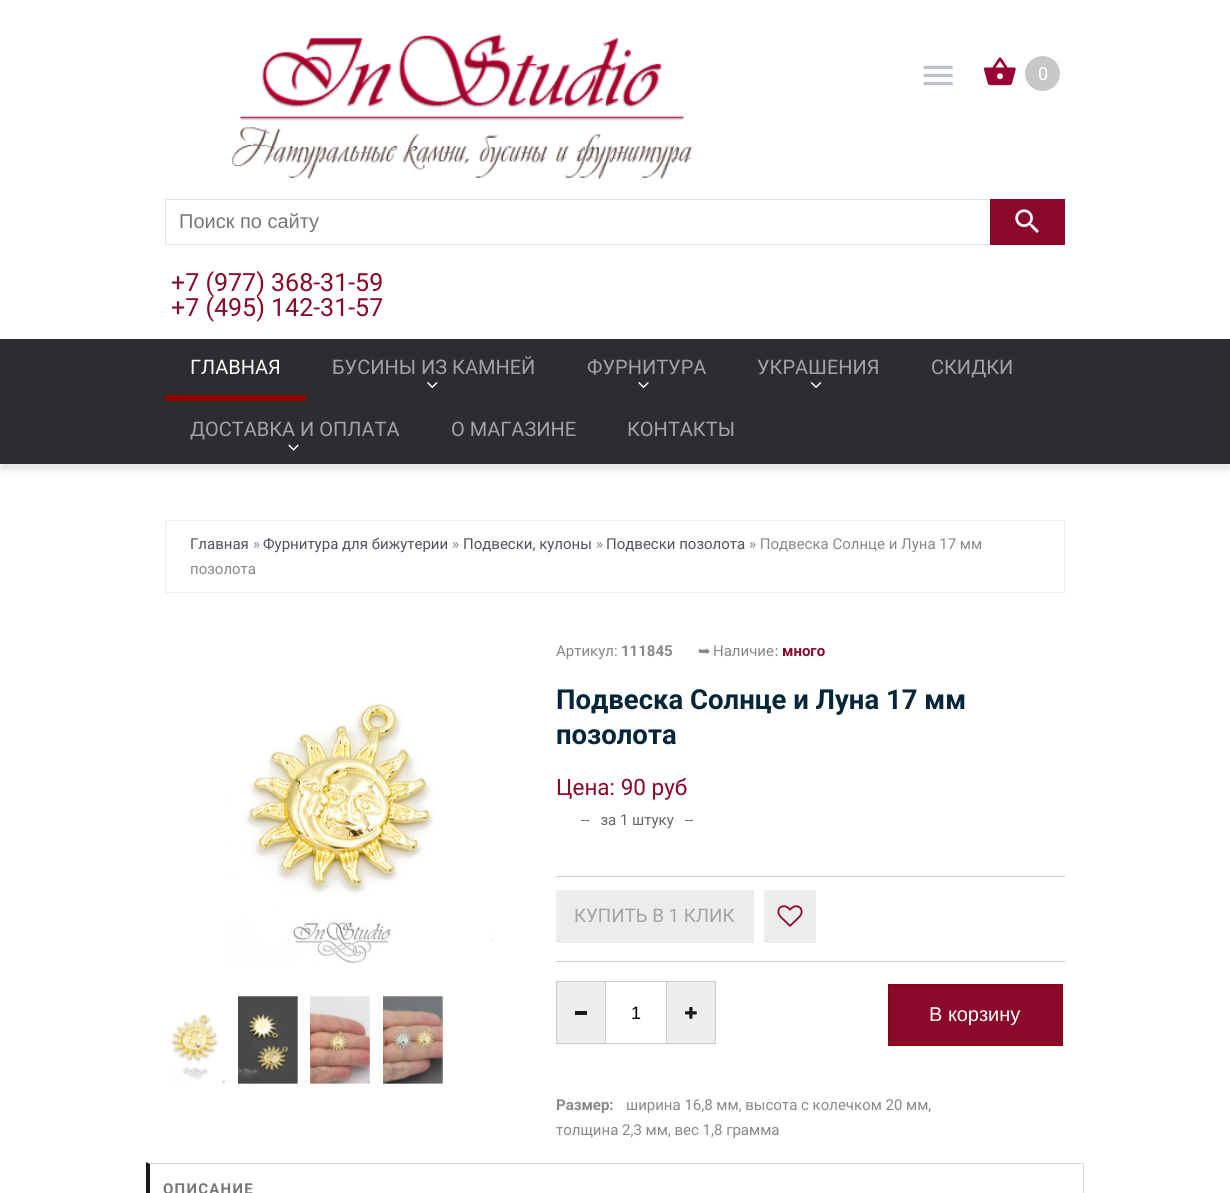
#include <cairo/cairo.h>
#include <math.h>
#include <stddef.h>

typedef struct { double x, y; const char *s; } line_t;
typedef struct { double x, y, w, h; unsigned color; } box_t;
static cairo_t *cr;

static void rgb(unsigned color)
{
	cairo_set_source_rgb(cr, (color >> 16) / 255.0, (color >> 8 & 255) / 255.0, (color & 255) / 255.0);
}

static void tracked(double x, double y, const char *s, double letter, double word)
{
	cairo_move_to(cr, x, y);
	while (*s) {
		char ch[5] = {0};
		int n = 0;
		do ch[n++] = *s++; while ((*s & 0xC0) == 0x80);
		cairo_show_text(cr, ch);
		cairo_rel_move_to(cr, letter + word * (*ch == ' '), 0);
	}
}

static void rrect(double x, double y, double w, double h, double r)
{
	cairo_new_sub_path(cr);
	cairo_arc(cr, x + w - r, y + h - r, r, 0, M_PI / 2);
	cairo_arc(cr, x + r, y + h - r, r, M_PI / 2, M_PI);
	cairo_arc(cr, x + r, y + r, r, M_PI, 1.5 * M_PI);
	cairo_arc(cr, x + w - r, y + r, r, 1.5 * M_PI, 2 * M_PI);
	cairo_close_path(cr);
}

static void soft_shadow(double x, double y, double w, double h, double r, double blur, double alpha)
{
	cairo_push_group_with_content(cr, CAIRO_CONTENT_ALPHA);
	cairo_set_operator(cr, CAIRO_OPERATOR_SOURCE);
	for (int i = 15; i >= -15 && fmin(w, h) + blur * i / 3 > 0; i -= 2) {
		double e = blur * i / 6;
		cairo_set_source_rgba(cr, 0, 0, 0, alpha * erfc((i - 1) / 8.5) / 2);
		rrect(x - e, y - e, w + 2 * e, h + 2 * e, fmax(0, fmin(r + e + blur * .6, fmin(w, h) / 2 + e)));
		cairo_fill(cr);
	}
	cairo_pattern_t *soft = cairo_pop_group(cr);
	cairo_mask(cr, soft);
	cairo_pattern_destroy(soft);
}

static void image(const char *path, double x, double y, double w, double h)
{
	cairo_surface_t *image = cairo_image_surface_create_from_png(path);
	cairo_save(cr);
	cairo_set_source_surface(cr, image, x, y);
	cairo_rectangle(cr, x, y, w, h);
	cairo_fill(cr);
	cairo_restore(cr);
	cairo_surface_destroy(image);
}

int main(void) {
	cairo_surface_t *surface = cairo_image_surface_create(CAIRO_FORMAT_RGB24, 1230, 1193);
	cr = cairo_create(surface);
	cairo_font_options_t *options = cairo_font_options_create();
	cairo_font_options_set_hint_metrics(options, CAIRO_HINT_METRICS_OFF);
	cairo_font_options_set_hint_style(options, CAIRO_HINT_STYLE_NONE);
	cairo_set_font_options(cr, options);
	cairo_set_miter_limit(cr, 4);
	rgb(0xffffff);
	cairo_paint(cr);
	image("img/1.png", 232, 34, 460, 145);
	image("img/2.png", 923, 65, 30, 21);
	image("img/3.png", 983, 57, 33, 29);
	rgb(0xc9c8c8);
	cairo_arc(cr, 1042.5, 73.5, 17.5, 0, 2 * M_PI);
	cairo_fill(cr);
	cairo_rectangle(cr, 165.5, 199.5, 899, 45);
	rgb(0xe5e4e4);
	cairo_set_line_width(cr, 1);
	cairo_stroke(cr);
	rgb(0x8a0829);
	cairo_rectangle(cr, 990, 199, 75, 46);
	cairo_fill(cr);
	image("img/4.png", 1015, 209, 24, 24);
	rgb(0x000000);
	soft_shadow(0, 345, 1230, 125, 0, 3, 0.11);
	rgb(0x2c2d30);
	cairo_rectangle(cr, 0, 339, 1230, 125);
	cairo_fill(cr);
	rgb(0x920200);
	cairo_rectangle(cr, 165, 395, 141, 6);
	cairo_fill(cr);
	image("img/5.png", 427, 382, 11, 6);
	image("img/6.png", 638, 382, 11, 6);
	image("img/7.png", 810, 382, 12, 6);
	image("img/8.png", 288, 444, 11, 7);
	cairo_rectangle(cr, 165.5, 520.5, 899, 72);
	rgb(0xeeeeee);
	cairo_stroke(cr);
	image("img/9.png", 224, 701, 271, 264);
	image("img/10.png", 171, 1014, 54, 70);
	image("img/11.png", 238, 996, 60, 88);
	image("img/12.png", 310, 996, 60, 88);
	image("img/13.png", 383, 996, 60, 88);
	{
		static const box_t items[] = {
			{556, 876, 509, 1, 0xcccccc},
			{556, 961, 509, 1, 0xcccccc},
			{556, 890, 198, 53, 0xececec},
			{764, 890, 52, 53, 0xececec},
		};
		for (size_t i = 0; i < sizeof items / sizeof *items; i++) {
			rgb(items[i].color);
			cairo_rectangle(cr, items[i].x, items[i].y, items[i].w, items[i].h);
			cairo_fill(cr);
		}
	}
	image("img/14.png", 777, 905, 26, 22);
	rgb(0xeeeeee);
	cairo_rectangle(cr, 556.5, 981.5, 49, 62);
	cairo_fill_preserve(cr);
	rgb(0xcccccc);
	cairo_stroke(cr);
	rgb(0x1a1a1a);
	cairo_rectangle(cr, 575, 1011, 12, 4);
	cairo_fill(cr);
	cairo_rectangle(cr, 605.5, 981.5, 62, 62);
	rgb(0xcccccc);
	cairo_stroke(cr);
	rgb(0xeeeeee);
	cairo_rectangle(cr, 666.5, 981.5, 49, 62);
	cairo_fill_preserve(cr);
	rgb(0xcccccc);
	cairo_stroke(cr);
	image("img/15.png", 685, 1006, 12, 13);
	rgb(0x8a0829);
	cairo_rectangle(cr, 888.5, 984.5, 174, 61);
	cairo_fill_preserve(cr);
	rgb(0x920200);
	cairo_stroke(cr);
	cairo_save(cr);
	cairo_rectangle(cr, 146, 1163, 938, 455);
	cairo_clip(cr);
	rgb(0xd8d8d8);
	cairo_new_path(cr);
	cairo_move_to(cr, 146, 1162);
	cairo_line_to(cr, 1084, 1162);
	cairo_line_to(cr, 1082, 1164);
	cairo_line_to(cr, 150, 1164);
	cairo_close_path(cr);
	cairo_fill(cr);
	cairo_restore(cr);
	rgb(0xd8d8d8);
	cairo_rectangle(cr, 1083, 1163, 1, 30);
	cairo_fill(cr);
	rgb(0x1a1a1a);
	cairo_new_path(cr);
	cairo_move_to(cr, 146, 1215);
	cairo_line_to(cr, 146, 1162);
	cairo_line_to(cr, 150, 1164);
	cairo_line_to(cr, 150, 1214);
	cairo_close_path(cr);
	cairo_fill(cr);
	cairo_select_font_face(cr, "Roboto", CAIRO_FONT_SLANT_NORMAL, CAIRO_FONT_WEIGHT_NORMAL);
	cairo_set_font_size(cr, 18);
	rgb(0xffffff);
	cairo_move_to(cr, 1038, 80);
	cairo_show_text(cr, "0");
	cairo_select_font_face(cr, "Liberation Sans", CAIRO_FONT_SLANT_NORMAL, CAIRO_FONT_WEIGHT_NORMAL);
	cairo_set_font_size(cr, 20);
	rgb(0x777777);
	cairo_move_to(cr, 179, 228);
	cairo_show_text(cr, "Поиск по сайту");
	cairo_select_font_face(cr, "Roboto", CAIRO_FONT_SLANT_NORMAL, CAIRO_FONT_WEIGHT_NORMAL);
	cairo_set_font_size(cr, 25);
	rgb(0x8a0829);
	cairo_move_to(cr, 171, 291);
	cairo_show_text(cr, "+7 (977) 368-31-59");
	cairo_move_to(cr, 171, 316);
	cairo_show_text(cr, "+7 (495) 142-31-57");
	cairo_set_font_size(cr, 20);
	rgb(0xffffff);
	cairo_move_to(cr, 190, 374);
	cairo_show_text(cr, "ГЛАВНАЯ");
	rgb(0xa2a3a4);
	{
		static const line_t items[] = {
			{332, 374, "БУСИНЫ ИЗ КАМНЕЙ"},
			{587, 374, "ФУРНИТУРА"},
			{757, 374, "УКРАШЕНИЯ"},
			{931, 374, "СКИДКИ"},
			{190, 436, "ДОСТАВКА И ОПЛАТА"},
			{451, 436, "О МАГАЗИНЕ"},
			{627, 436, "КОНТАКТЫ"},
		};
		for (size_t i = 0; i < sizeof items / sizeof *items; i++) {
			cairo_move_to(cr, items[i].x, items[i].y);
			cairo_show_text(cr, items[i].s);
		}
	}
	cairo_set_font_size(cr, 15);
	rgb(0x53525e);
	cairo_move_to(cr, 190, 549);
	cairo_show_text(cr, "Главная");
	rgb(0x888888);
	cairo_move_to(cr, 253, 549);
	cairo_show_text(cr, "»");
	rgb(0x53525e);
	cairo_move_to(cr, 263, 549);
	cairo_show_text(cr, "Фурнитура для бижутерии");
	rgb(0x888888);
	cairo_move_to(cr, 452, 549);
	cairo_show_text(cr, "»");
	rgb(0x53525e);
	cairo_move_to(cr, 463, 549);
	cairo_show_text(cr, "Подвески, кулоны");
	rgb(0x888888);
	cairo_move_to(cr, 596, 549);
	cairo_show_text(cr, "»");
	rgb(0x53525e);
	cairo_move_to(cr, 606, 549);
	cairo_show_text(cr, "Подвески позолота");
	rgb(0x888888);
	{
		static const line_t items[] = {
			{749, 549, "» Подвеска Солнце и Луна 17 мм"},
			{190, 574, "позолота"},
			{556, 656, "Артикул:"},
		};
		for (size_t i = 0; i < sizeof items / sizeof *items; i++) {
			cairo_move_to(cr, items[i].x, items[i].y);
			cairo_show_text(cr, items[i].s);
		}
	}
	cairo_select_font_face(cr, "Roboto", CAIRO_FONT_SLANT_NORMAL, CAIRO_FONT_WEIGHT_BOLD);
	cairo_move_to(cr, 621, 656);
	cairo_show_text(cr, "111845");
	cairo_select_font_face(cr, "DejaVu Sans", CAIRO_FONT_SLANT_NORMAL, CAIRO_FONT_WEIGHT_NORMAL);
	cairo_move_to(cr, 698, 656);
	cairo_show_text(cr, "➥");
	cairo_select_font_face(cr, "Roboto", CAIRO_FONT_SLANT_NORMAL, CAIRO_FONT_WEIGHT_NORMAL);
	cairo_move_to(cr, 713, 656);
	cairo_show_text(cr, "Наличие");
	cairo_select_font_face(cr, "DejaVu Sans", CAIRO_FONT_SLANT_NORMAL, CAIRO_FONT_WEIGHT_NORMAL);
	cairo_move_to(cr, 774, 656);
	cairo_show_text(cr, ":");
	cairo_select_font_face(cr, "Roboto", CAIRO_FONT_SLANT_NORMAL, CAIRO_FONT_WEIGHT_BOLD);
	rgb(0x8a0829);
	cairo_move_to(cr, 782, 656);
	cairo_show_text(cr, "много");
	cairo_set_font_size(cr, 27.5);
	rgb(0x04253a);
	cairo_move_to(cr, 556, 709);
	cairo_show_text(cr, "Подвеска Солнце и Луна 17 мм");
	cairo_move_to(cr, 556, 744);
	cairo_show_text(cr, "позолота");
	cairo_select_font_face(cr, "Roboto", CAIRO_FONT_SLANT_NORMAL, CAIRO_FONT_WEIGHT_NORMAL);
	cairo_set_font_size(cr, 22.5);
	rgb(0x8a0829);
	cairo_move_to(cr, 556, 795);
	cairo_show_text(cr, "Цена: 90 руб");
	cairo_set_font_size(cr, 15);
	rgb(0x666666);
	cairo_move_to(cr, 581, 825);
	cairo_show_text(cr, "--   за 1 штуку   --");
	cairo_set_font_size(cr, 18.75);
	rgb(0xa2a3a4);
	cairo_move_to(cr, 574, 922);
	cairo_show_text(cr, "КУПИТЬ В 1 КЛИК");
	cairo_select_font_face(cr, "Liberation Sans", CAIRO_FONT_SLANT_NORMAL, CAIRO_FONT_WEIGHT_NORMAL);
	cairo_set_font_size(cr, 18);
	rgb(0x000000);
	cairo_move_to(cr, 631, 1019);
	cairo_show_text(cr, "1");
	cairo_set_font_size(cr, 20);
	rgb(0xffffff);
	cairo_move_to(cr, 929, 1021);
	cairo_show_text(cr, "В корзину");
	cairo_select_font_face(cr, "Roboto", CAIRO_FONT_SLANT_NORMAL, CAIRO_FONT_WEIGHT_BOLD);
	cairo_set_font_size(cr, 15);
	rgb(0x888888);
	cairo_move_to(cr, 556, 1110);
	cairo_show_text(cr, "Размер:");
	cairo_select_font_face(cr, "Roboto", CAIRO_FONT_SLANT_NORMAL, CAIRO_FONT_WEIGHT_NORMAL);
	cairo_move_to(cr, 626, 1110);
	cairo_show_text(cr, "ширина 16,8 мм, высота с колечком 20 мм,");
	cairo_move_to(cr, 556, 1135);
	cairo_show_text(cr, "толщина 2,3 мм, вес 1,8 грамма");
	cairo_select_font_face(cr, "Roboto", CAIRO_FONT_SLANT_NORMAL, CAIRO_FONT_WEIGHT_BOLD);
	rgb(0x777777);
	tracked(163, 1194, "ОПИСАНИЕ", 1.25, 0);
	cairo_surface_write_to_png(surface, "page.png");
	cairo_font_options_destroy(options);
	cairo_destroy(cr);
	cairo_surface_destroy(surface);
	return 0;
}
